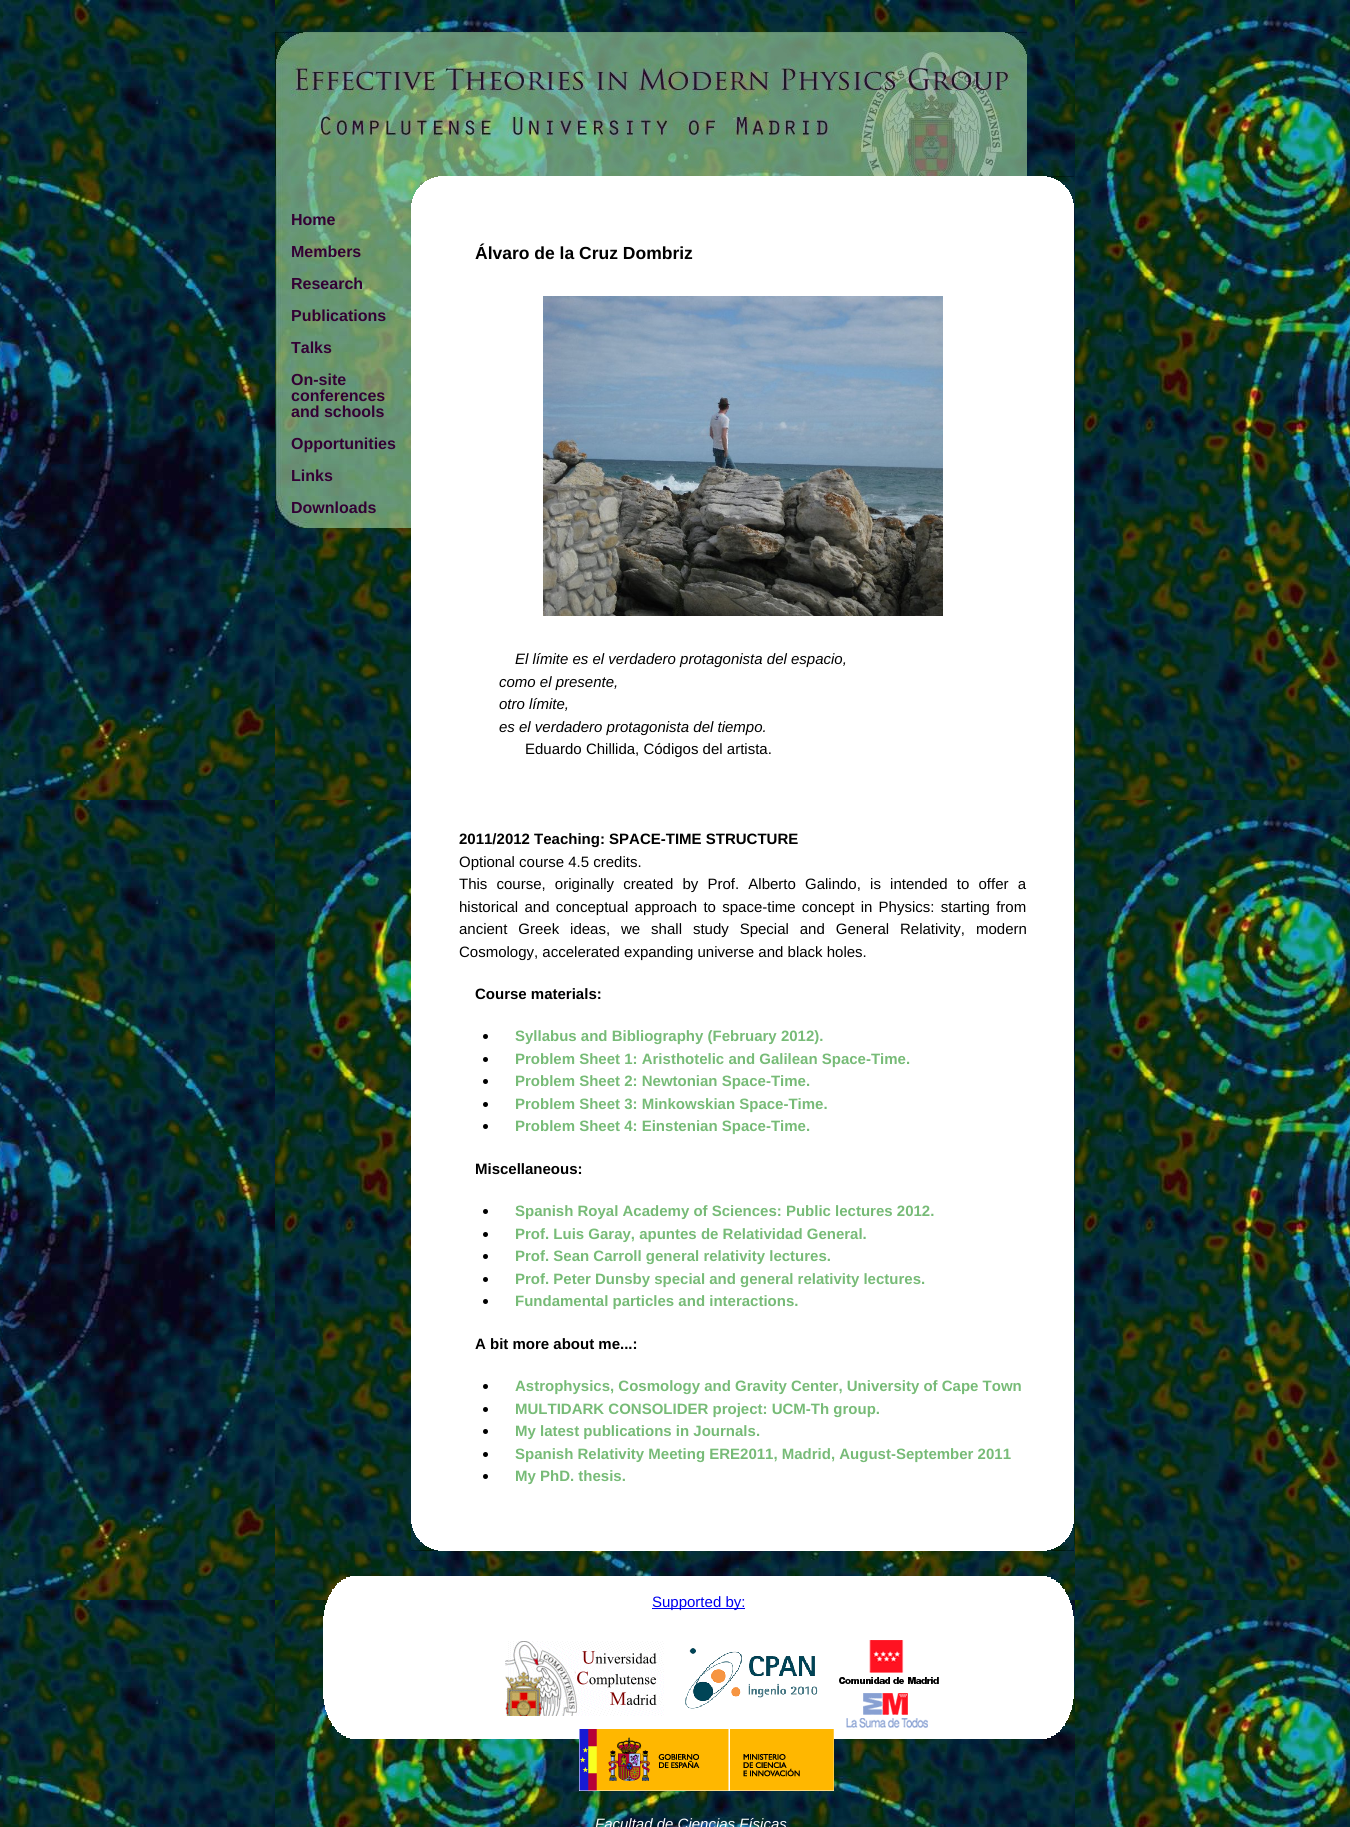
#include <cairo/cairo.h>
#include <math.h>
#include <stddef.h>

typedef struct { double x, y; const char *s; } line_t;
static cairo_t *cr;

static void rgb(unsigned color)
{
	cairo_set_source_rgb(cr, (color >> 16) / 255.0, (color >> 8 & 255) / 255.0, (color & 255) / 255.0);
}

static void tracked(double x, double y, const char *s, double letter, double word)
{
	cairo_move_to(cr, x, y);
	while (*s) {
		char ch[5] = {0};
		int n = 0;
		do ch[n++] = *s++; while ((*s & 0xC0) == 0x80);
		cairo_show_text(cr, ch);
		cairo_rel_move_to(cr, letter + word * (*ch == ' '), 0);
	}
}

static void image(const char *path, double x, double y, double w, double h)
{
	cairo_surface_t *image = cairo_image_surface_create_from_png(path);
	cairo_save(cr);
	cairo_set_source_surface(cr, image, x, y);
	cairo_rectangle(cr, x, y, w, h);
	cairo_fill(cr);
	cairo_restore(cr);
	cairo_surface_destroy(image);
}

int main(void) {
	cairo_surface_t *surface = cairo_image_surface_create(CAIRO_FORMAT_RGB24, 1350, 1827);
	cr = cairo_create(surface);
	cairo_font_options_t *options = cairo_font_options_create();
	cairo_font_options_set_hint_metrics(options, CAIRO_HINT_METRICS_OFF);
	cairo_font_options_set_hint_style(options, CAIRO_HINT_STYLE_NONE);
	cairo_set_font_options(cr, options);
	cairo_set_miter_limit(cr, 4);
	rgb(0xffffff);
	cairo_paint(cr);
	image("img/1.png", 0, 0, 1350, 1827);
	image("img/2.png", 275, 32, 752, 144);
	image("img/3.png", 275, 176, 136, 352);
	rgb(0xffffff);
	cairo_rectangle(cr, 411, 176, 663, 1375);
	cairo_fill(cr);
	image("img/4.png", 411, 176, 27, 27);
	image("img/5.png", 1047, 176, 27, 27);
	image("img/6.png", 411, 1524, 27, 27);
	image("img/7.png", 1047, 1524, 27, 27);
	image("img/8.png", 543, 296, 400, 320);
	rgb(0x000000);
	cairo_arc(cr, 485.5, 1036.5, 2.5, 0, 2 * M_PI);
	cairo_fill(cr);
	cairo_arc(cr, 485.5, 1059.5, 2.5, 0, 2 * M_PI);
	cairo_fill(cr);
	cairo_arc(cr, 485.5, 1081.5, 2.5, 0, 2 * M_PI);
	cairo_fill(cr);
	cairo_arc(cr, 485.5, 1104.5, 2.5, 0, 2 * M_PI);
	cairo_fill(cr);
	cairo_arc(cr, 485.5, 1126.5, 2.5, 0, 2 * M_PI);
	cairo_fill(cr);
	cairo_arc(cr, 485.5, 1211.5, 2.5, 0, 2 * M_PI);
	cairo_fill(cr);
	cairo_arc(cr, 485.5, 1234.5, 2.5, 0, 2 * M_PI);
	cairo_fill(cr);
	cairo_arc(cr, 485.5, 1256.5, 2.5, 0, 2 * M_PI);
	cairo_fill(cr);
	cairo_arc(cr, 485.5, 1279.5, 2.5, 0, 2 * M_PI);
	cairo_fill(cr);
	cairo_arc(cr, 485.5, 1301.5, 2.5, 0, 2 * M_PI);
	cairo_fill(cr);
	cairo_arc(cr, 485.5, 1386.5, 2.5, 0, 2 * M_PI);
	cairo_fill(cr);
	cairo_arc(cr, 485.5, 1409.5, 2.5, 0, 2 * M_PI);
	cairo_fill(cr);
	cairo_arc(cr, 485.5, 1431.5, 2.5, 0, 2 * M_PI);
	cairo_fill(cr);
	cairo_arc(cr, 485.5, 1454.5, 2.5, 0, 2 * M_PI);
	cairo_fill(cr);
	cairo_arc(cr, 485.5, 1476.5, 2.5, 0, 2 * M_PI);
	cairo_fill(cr);
	image("img/9.png", 323, 1576, 751, 163);
	rgb(0x0000ee);
	cairo_rectangle(cr, 652, 1608, 93, 1);
	cairo_fill(cr);
	image("img/10.png", 505, 1641, 159, 75);
	image("img/11.png", 685, 1648, 133, 61);
	image("img/12.png", 839, 1640, 100, 88);
	image("img/13.png", 579, 1729, 255, 62);
	cairo_select_font_face(cr, "Liberation Sans", CAIRO_FONT_SLANT_NORMAL, CAIRO_FONT_WEIGHT_BOLD);
	cairo_set_font_size(cr, 16);
	rgb(0x330033);
	{
		static const line_t items[] = {
			{291, 225, "Home"},
			{291, 257, "Members"},
			{291, 289, "Research"},
			{291, 321, "Publications"},
			{291, 353, "Talks"},
			{291, 385, "On-site"},
			{291, 401, "conferences"},
			{291, 417, "and schools"},
			{291, 449, "Opportunities"},
			{291, 481, "Links"},
			{291, 513, "Downloads"},
		};
		for (size_t i = 0; i < sizeof items / sizeof *items; i++) {
			cairo_move_to(cr, items[i].x, items[i].y);
			cairo_show_text(cr, items[i].s);
		}
	}
	cairo_set_font_size(cr, 17.5);
	rgb(0x000000);
	cairo_move_to(cr, 475, 259);
	cairo_show_text(cr, "Álvaro de la Cruz Dombriz");
	cairo_select_font_face(cr, "Liberation Sans", CAIRO_FONT_SLANT_ITALIC, CAIRO_FONT_WEIGHT_NORMAL);
	cairo_set_font_size(cr, 15);
	{
		static const line_t items[] = {
			{515, 664, "El límite es el verdadero protagonista del espacio,"},
			{499, 687, "como el presente,"},
			{499, 709, "otro límite,"},
			{499, 732, "es el verdadero protagonista del tiempo."},
		};
		for (size_t i = 0; i < sizeof items / sizeof *items; i++) {
			cairo_move_to(cr, items[i].x, items[i].y);
			cairo_show_text(cr, items[i].s);
		}
	}
	cairo_select_font_face(cr, "Liberation Sans", CAIRO_FONT_SLANT_NORMAL, CAIRO_FONT_WEIGHT_NORMAL);
	cairo_move_to(cr, 525, 754);
	cairo_show_text(cr, "Eduardo Chillida, Códigos del artista.");
	cairo_select_font_face(cr, "Liberation Sans", CAIRO_FONT_SLANT_NORMAL, CAIRO_FONT_WEIGHT_BOLD);
	cairo_move_to(cr, 459, 844);
	cairo_show_text(cr, "2011/2012 Teaching: SPACE-TIME STRUCTURE");
	cairo_select_font_face(cr, "Liberation Sans", CAIRO_FONT_SLANT_NORMAL, CAIRO_FONT_WEIGHT_NORMAL);
	cairo_move_to(cr, 459, 867);
	cairo_show_text(cr, "Optional course 4.5 credits.");
	tracked(459, 889, "This course, originally created by Prof. Alberto Galindo, is intended to offer a", 0, 5);
	tracked(459, 912, "historical and conceptual approach to space-time concept in Physics: starting from", 0, 2.1);
	tracked(459, 934, "ancient Greek ideas, we shall study Special and General Relativity, modern", 0, 6.75);
	cairo_move_to(cr, 459, 957);
	cairo_show_text(cr, "Cosmology, accelerated expanding universe and black holes.");
	cairo_select_font_face(cr, "Liberation Sans", CAIRO_FONT_SLANT_NORMAL, CAIRO_FONT_WEIGHT_BOLD);
	cairo_move_to(cr, 475, 999);
	cairo_show_text(cr, "Course materials:");
	rgb(0x77bb77);
	{
		static const line_t items[] = {
			{515, 1041, "Syllabus and Bibliography (February 2012)."},
			{515, 1064, "Problem Sheet 1: Aristhotelic and Galilean Space-Time."},
			{515, 1086, "Problem Sheet 2: Newtonian Space-Time."},
			{515, 1109, "Problem Sheet 3: Minkowskian Space-Time."},
			{515, 1131, "Problem Sheet 4: Einstenian Space-Time."},
		};
		for (size_t i = 0; i < sizeof items / sizeof *items; i++) {
			cairo_move_to(cr, items[i].x, items[i].y);
			cairo_show_text(cr, items[i].s);
		}
	}
	rgb(0x000000);
	cairo_move_to(cr, 475, 1174);
	cairo_show_text(cr, "Miscellaneous:");
	rgb(0x77bb77);
	{
		static const line_t items[] = {
			{515, 1216, "Spanish Royal Academy of Sciences: Public lectures 2012."},
			{515, 1239, "Prof. Luis Garay, apuntes de Relatividad General."},
			{515, 1261, "Prof. Sean Carroll general relativity lectures."},
			{515, 1284, "Prof. Peter Dunsby special and general relativity lectures."},
			{515, 1306, "Fundamental particles and interactions."},
		};
		for (size_t i = 0; i < sizeof items / sizeof *items; i++) {
			cairo_move_to(cr, items[i].x, items[i].y);
			cairo_show_text(cr, items[i].s);
		}
	}
	rgb(0x000000);
	cairo_move_to(cr, 475, 1349);
	cairo_show_text(cr, "A bit more about me...:");
	rgb(0x77bb77);
	{
		static const line_t items[] = {
			{515, 1391, "Astrophysics, Cosmology and Gravity Center, University of Cape Town"},
			{515, 1414, "MULTIDARK CONSOLIDER project: UCM-Th group."},
			{515, 1436, "My latest publications in Journals."},
			{515, 1459, "Spanish Relativity Meeting ERE2011, Madrid, August-September 2011"},
			{515, 1481, "My PhD. thesis."},
		};
		for (size_t i = 0; i < sizeof items / sizeof *items; i++) {
			cairo_move_to(cr, items[i].x, items[i].y);
			cairo_show_text(cr, items[i].s);
		}
	}
	cairo_select_font_face(cr, "Liberation Sans", CAIRO_FONT_SLANT_NORMAL, CAIRO_FONT_WEIGHT_NORMAL);
	rgb(0x0000ee);
	cairo_move_to(cr, 652, 1607);
	cairo_show_text(cr, "Supported by:");
	cairo_select_font_face(cr, "Liberation Sans", CAIRO_FONT_SLANT_ITALIC, CAIRO_FONT_WEIGHT_NORMAL);
	rgb(0xffffff);
	cairo_move_to(cr, 595, 1829);
	cairo_show_text(cr, "Facultad de Ciencias Físicas");
	cairo_surface_write_to_png(surface, "page.png");
	cairo_font_options_destroy(options);
	cairo_destroy(cr);
	cairo_surface_destroy(surface);
	return 0;
}
